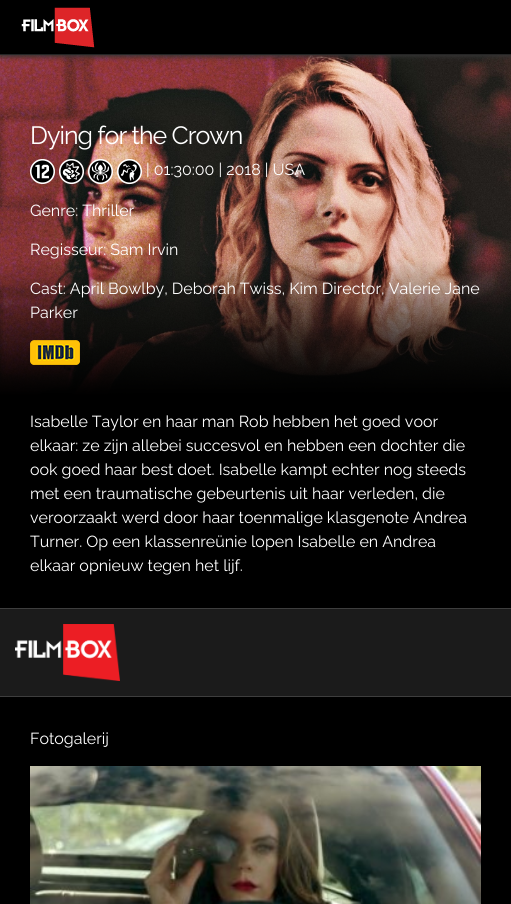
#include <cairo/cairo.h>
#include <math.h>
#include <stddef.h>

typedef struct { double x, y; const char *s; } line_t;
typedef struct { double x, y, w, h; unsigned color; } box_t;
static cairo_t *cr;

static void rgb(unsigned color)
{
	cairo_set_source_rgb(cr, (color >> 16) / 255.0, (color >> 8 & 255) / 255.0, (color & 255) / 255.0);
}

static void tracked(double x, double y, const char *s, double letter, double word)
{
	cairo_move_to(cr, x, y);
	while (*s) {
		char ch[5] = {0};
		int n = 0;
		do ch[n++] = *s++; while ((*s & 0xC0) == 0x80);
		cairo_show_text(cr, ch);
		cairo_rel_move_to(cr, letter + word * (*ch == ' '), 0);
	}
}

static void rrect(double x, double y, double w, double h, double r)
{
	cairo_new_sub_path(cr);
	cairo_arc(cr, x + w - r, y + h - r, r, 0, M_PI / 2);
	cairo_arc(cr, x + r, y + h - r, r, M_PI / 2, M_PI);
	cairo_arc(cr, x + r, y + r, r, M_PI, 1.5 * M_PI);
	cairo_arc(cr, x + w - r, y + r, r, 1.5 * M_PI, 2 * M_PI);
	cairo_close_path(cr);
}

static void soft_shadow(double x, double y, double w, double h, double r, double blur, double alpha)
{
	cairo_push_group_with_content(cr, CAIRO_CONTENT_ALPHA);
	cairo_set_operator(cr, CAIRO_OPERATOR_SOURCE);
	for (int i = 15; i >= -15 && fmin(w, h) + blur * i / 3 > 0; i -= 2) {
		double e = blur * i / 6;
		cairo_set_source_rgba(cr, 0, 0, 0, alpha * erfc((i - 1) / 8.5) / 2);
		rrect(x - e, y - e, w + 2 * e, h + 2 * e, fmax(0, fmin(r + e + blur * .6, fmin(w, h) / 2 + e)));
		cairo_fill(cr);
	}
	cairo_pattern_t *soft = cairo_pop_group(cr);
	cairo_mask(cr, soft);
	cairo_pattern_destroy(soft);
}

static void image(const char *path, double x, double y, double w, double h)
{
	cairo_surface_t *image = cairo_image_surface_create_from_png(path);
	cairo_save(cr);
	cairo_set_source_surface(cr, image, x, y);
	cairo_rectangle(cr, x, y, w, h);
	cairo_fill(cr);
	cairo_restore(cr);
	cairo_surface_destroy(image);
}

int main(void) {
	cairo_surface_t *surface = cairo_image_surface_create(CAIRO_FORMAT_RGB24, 511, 904);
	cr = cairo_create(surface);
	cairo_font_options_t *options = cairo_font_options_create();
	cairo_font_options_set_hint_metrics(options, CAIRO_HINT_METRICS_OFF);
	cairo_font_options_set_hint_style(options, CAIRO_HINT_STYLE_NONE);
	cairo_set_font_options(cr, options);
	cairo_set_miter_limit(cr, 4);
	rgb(0x000000);
	cairo_paint(cr);
	image("img/2.png", 0, 55, 511, 340);
	cairo_save(cr);
	cairo_rectangle(cr, 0, 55, 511, 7);
	cairo_clip(cr);
	rgb(0x333333);
	soft_shadow(0, 2, 511, 55, 0, 2.5, 1);
	cairo_restore(cr);
	rgb(0x252525);
	cairo_rectangle(cr, 0, 54, 511, 1);
	cairo_fill(cr);
	image("img/1.png", 21, 7, 74, 41);
	image("img/3.png", 30, 159, 25, 25);
	image("img/4.png", 59, 159, 25, 25);
	image("img/5.png", 88, 159, 25, 25);
	image("img/6.png", 117, 159, 25, 25);
	image("img/7.png", 30, 340, 50, 25);
	{
		static const box_t items[] = {
			{0, 609, 511, 87, 0x1b1b1b},
			{0, 608, 511, 1, 0x3e3e3e},
			{0, 696, 511, 1, 0x3e3e3e},
		};
		for (size_t i = 0; i < sizeof items / sizeof *items; i++) {
			rgb(items[i].color);
			cairo_rectangle(cr, items[i].x, items[i].y, items[i].w, items[i].h);
			cairo_fill(cr);
		}
	}
	image("img/8.png", 15, 624, 105, 57);
	image("img/9.png", 30, 766, 451, 138);
	cairo_select_font_face(cr, "Raleway", CAIRO_FONT_SLANT_NORMAL, CAIRO_FONT_WEIGHT_NORMAL);
	cairo_set_font_size(cr, 25);
	rgb(0xffffff);
	tracked(30, 144, "Dying for the Crown", -1, 0);
	cairo_set_font_size(cr, 16);
	{
		static const line_t items[] = {
			{146, 175, "| 01:30:00 | 2018 | USA"},
			{30, 216, "Genre: Thriller"},
			{30, 255, "Regisseur: Sam Irvin"},
			{30, 294, "Cast: April Bowlby, Deborah Twiss, Kim Director, Valerie Jane"},
			{30, 318, "Parker"},
			{30, 427, "Isabelle Taylor en haar man Rob hebben het goed voor"},
			{30, 451, "elkaar: ze zijn allebei succesvol en hebben een dochter die"},
			{30, 475, "ook goed haar best doet. Isabelle kampt echter nog steeds"},
			{30, 499, "met een traumatische gebeurtenis uit haar verleden, die"},
			{30, 523, "veroorzaakt werd door haar toenmalige klasgenote Andrea"},
			{30, 547, "Turner. Op een klassenreünie lopen Isabelle en Andrea"},
			{30, 571, "elkaar opnieuw tegen het lijf."},
			{30, 744, "Fotogalerij"},
		};
		for (size_t i = 0; i < sizeof items / sizeof *items; i++) {
			cairo_move_to(cr, items[i].x, items[i].y);
			cairo_show_text(cr, items[i].s);
		}
	}
	cairo_surface_write_to_png(surface, "page.png");
	cairo_font_options_destroy(options);
	cairo_destroy(cr);
	cairo_surface_destroy(surface);
	return 0;
}
